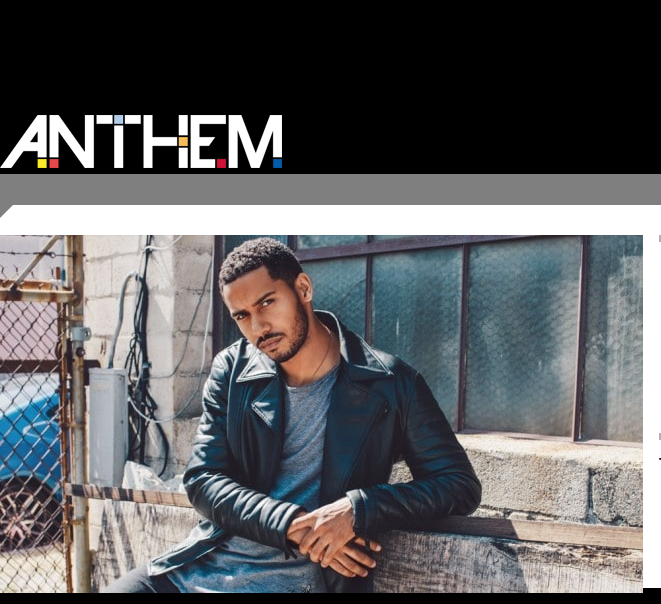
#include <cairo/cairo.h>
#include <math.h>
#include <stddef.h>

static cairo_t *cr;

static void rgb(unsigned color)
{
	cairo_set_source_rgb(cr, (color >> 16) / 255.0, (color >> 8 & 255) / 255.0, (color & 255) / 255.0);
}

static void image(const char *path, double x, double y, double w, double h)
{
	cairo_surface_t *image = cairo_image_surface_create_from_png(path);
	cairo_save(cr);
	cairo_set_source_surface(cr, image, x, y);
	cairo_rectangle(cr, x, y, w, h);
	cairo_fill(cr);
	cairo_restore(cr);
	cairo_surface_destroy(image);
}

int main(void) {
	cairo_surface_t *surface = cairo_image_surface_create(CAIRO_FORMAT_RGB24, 661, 604);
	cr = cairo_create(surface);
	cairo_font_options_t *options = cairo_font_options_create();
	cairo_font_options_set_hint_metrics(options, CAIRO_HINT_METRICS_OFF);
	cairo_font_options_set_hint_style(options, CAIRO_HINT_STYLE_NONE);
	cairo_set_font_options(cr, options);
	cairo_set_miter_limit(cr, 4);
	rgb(0xffffff);
	cairo_paint(cr);
	rgb(0x000000);
	cairo_rectangle(cr, 0, 0, 661, 174);
	cairo_fill(cr);
	image("img/1.png", 0, 115, 282, 53);
	rgb(0x7f7f7f);
	cairo_rectangle(cr, 0, 174, 661, 31);
	cairo_fill(cr);
	image("img/2.png", 0, 205, 13, 13);
	rgb(0x000000);
	cairo_rectangle(cr, 0, 588, 661, 16);
	cairo_fill(cr);
	image("img/3.png", 0, 235, 643, 358);
	rgb(0xb2b2b2);
	cairo_rectangle(cr, 659, 235, 2, 7);
	cairo_fill(cr);
	cairo_rectangle(cr, 659, 433, 2, 7);
	cairo_fill(cr);
	image("img/4.png", 659, 458, 2, 2);
	cairo_surface_write_to_png(surface, "page.png");
	cairo_font_options_destroy(options);
	cairo_destroy(cr);
	cairo_surface_destroy(surface);
	return 0;
}
